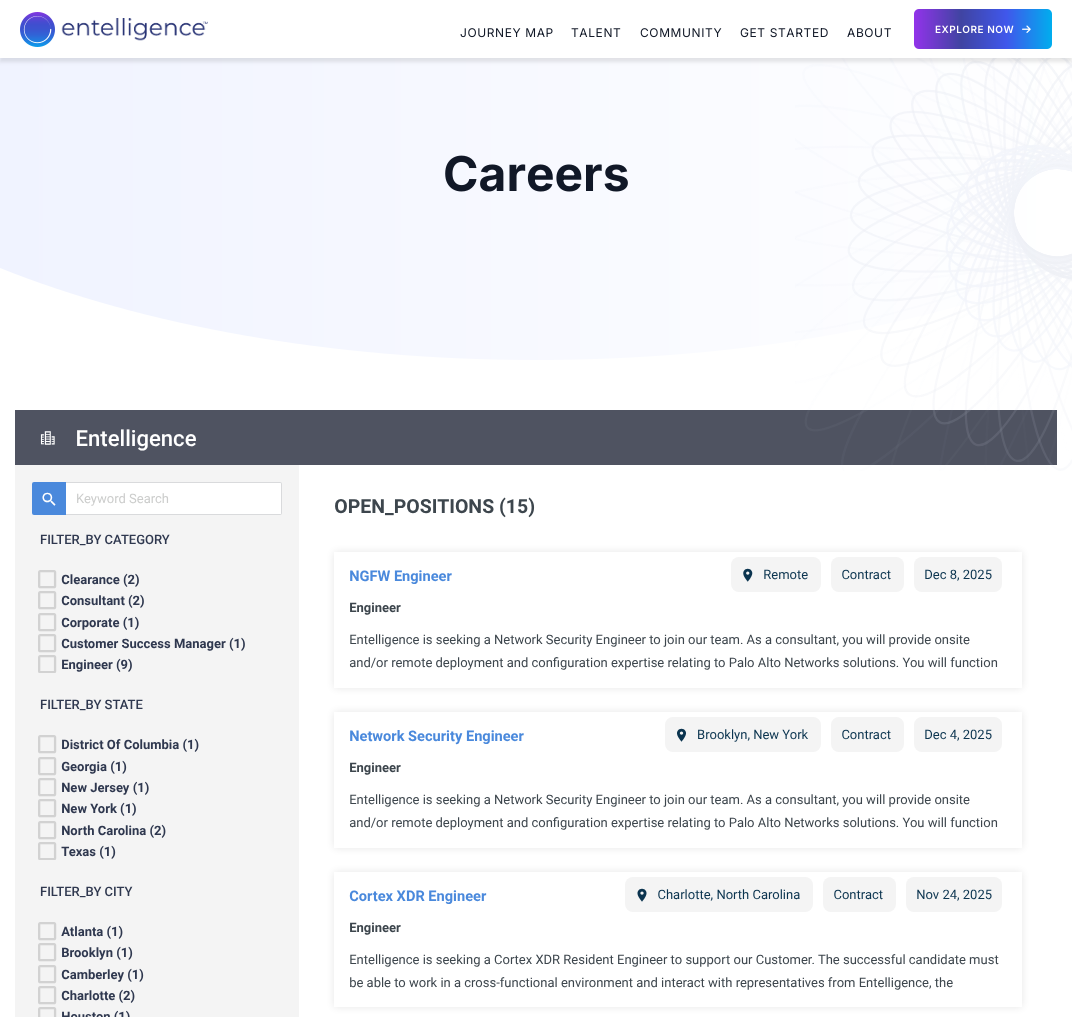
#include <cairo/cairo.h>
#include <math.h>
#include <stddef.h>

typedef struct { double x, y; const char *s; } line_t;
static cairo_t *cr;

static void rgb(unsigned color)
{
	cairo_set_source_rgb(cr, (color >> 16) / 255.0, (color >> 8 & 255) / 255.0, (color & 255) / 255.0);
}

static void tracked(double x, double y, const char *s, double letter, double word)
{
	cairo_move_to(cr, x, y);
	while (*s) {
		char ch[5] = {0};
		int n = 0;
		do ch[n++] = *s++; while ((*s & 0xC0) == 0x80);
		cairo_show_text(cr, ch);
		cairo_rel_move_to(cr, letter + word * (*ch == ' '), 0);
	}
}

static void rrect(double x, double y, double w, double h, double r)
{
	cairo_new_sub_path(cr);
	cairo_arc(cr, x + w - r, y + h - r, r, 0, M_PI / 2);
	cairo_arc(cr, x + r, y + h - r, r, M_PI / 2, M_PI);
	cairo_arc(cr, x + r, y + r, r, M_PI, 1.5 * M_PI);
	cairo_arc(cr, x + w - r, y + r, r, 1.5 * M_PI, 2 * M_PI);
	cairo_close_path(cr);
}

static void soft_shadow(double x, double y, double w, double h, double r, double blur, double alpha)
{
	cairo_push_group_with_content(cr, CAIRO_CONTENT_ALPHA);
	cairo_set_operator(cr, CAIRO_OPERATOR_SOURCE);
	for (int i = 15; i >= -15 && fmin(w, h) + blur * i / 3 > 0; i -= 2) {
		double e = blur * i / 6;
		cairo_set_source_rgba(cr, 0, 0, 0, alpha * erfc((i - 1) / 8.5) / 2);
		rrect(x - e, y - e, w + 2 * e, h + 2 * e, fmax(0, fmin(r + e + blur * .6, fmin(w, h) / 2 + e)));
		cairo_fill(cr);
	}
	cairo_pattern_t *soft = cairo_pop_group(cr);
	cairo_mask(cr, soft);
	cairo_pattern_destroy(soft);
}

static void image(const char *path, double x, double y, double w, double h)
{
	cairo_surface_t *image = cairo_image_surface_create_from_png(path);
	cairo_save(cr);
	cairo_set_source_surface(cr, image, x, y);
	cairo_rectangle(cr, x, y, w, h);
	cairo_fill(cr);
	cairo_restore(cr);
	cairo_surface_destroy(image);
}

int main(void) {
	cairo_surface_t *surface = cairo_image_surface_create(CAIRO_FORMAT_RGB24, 1072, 1017);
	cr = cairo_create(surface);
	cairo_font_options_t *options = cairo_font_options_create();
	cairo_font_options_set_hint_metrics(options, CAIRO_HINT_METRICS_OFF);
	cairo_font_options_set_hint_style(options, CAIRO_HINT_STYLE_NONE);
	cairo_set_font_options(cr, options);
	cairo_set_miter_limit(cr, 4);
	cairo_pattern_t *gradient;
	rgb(0xffffff);
	cairo_paint(cr);
	gradient = cairo_pattern_create_linear(0, 180, 1072, 180);
	cairo_pattern_add_color_stop_rgba(gradient, 0, 0.941, 0.953, 1, 1);
	cairo_pattern_add_color_stop_rgba(gradient, 1, 1, 1, 1, 1);
	cairo_set_source(cr, gradient);
	cairo_pattern_destroy(gradient);
	cairo_new_path(cr);
	cairo_move_to(cr, 0, 0);
	cairo_line_to(cr, 1072, 0);
	cairo_line_to(cr, 1072, 268);
	cairo_curve_to(cr, 930, 325, 742, 360, 536, 360);
	cairo_curve_to(cr, 330, 360, 142, 325, 0, 268);
	cairo_close_path(cr);
	cairo_fill(cr);
	image("img/5.png", 15, 410, 1042, 607);
	image("img/4.png", 795, 58, 277, 413);
	rgb(0x000000);
	soft_shadow(0, 4, 1072, 58, 0, 2, 0.1);
	rgb(0xffffff);
	cairo_rectangle(cr, 0, 0, 1072, 58);
	cairo_fill(cr);
	image("img/1.png", 20, 12, 35, 35);
	image("img/2.png", 61, 18, 147, 23);
	gradient = cairo_pattern_create_linear(914, 29, 1052, 29);
	cairo_pattern_add_color_stop_rgba(gradient, 0, 0.573, 0.2, 0.918, 1);
	cairo_pattern_add_color_stop_rgba(gradient, 0.34, 0.251, 0.267, 0.635, 1);
	cairo_pattern_add_color_stop_rgba(gradient, 0.67, 0.251, 0.341, 0.922, 1);
	cairo_pattern_add_color_stop_rgba(gradient, 1, 0, 0.682, 0.933, 1);
	cairo_set_source(cr, gradient);
	cairo_pattern_destroy(gradient);
	rrect(914, 9, 138, 40, 5);
	cairo_fill(cr);
	image("img/3.png", 1022, 25, 9, 8);
	cairo_select_font_face(cr, "Inter", CAIRO_FONT_SLANT_NORMAL, CAIRO_FONT_WEIGHT_NORMAL);
	cairo_set_font_size(cr, 12);
	rgb(0x111827);
	{
		static const line_t items[] = {
			{460, 37, "JOURNEY MAP"},
			{571, 37, "TALENT"},
			{640, 37, "COMMUNITY"},
			{740, 37, "GET STARTED"},
			{847, 37, "ABOUT"},
		};
		for (size_t i = 0; i < sizeof items / sizeof *items; i++) {
			tracked(items[i].x, items[i].y, items[i].s, 0.6, 0);
		}
	}
	cairo_select_font_face(cr, "Inter SemiBold", CAIRO_FONT_SLANT_NORMAL, CAIRO_FONT_WEIGHT_NORMAL);
	cairo_set_font_size(cr, 10);
	rgb(0xffffff);
	tracked(935, 33, "EXPLORE NOW", 0.5, 0);
	cairo_select_font_face(cr, "Inter", CAIRO_FONT_SLANT_NORMAL, CAIRO_FONT_WEIGHT_BOLD);
	cairo_set_font_size(cr, 48);
	rgb(0x111827);
	cairo_move_to(cr, 443, 191);
	cairo_show_text(cr, "Careers");
	cairo_surface_write_to_png(surface, "page.png");
	cairo_font_options_destroy(options);
	cairo_destroy(cr);
	cairo_surface_destroy(surface);
	return 0;
}
